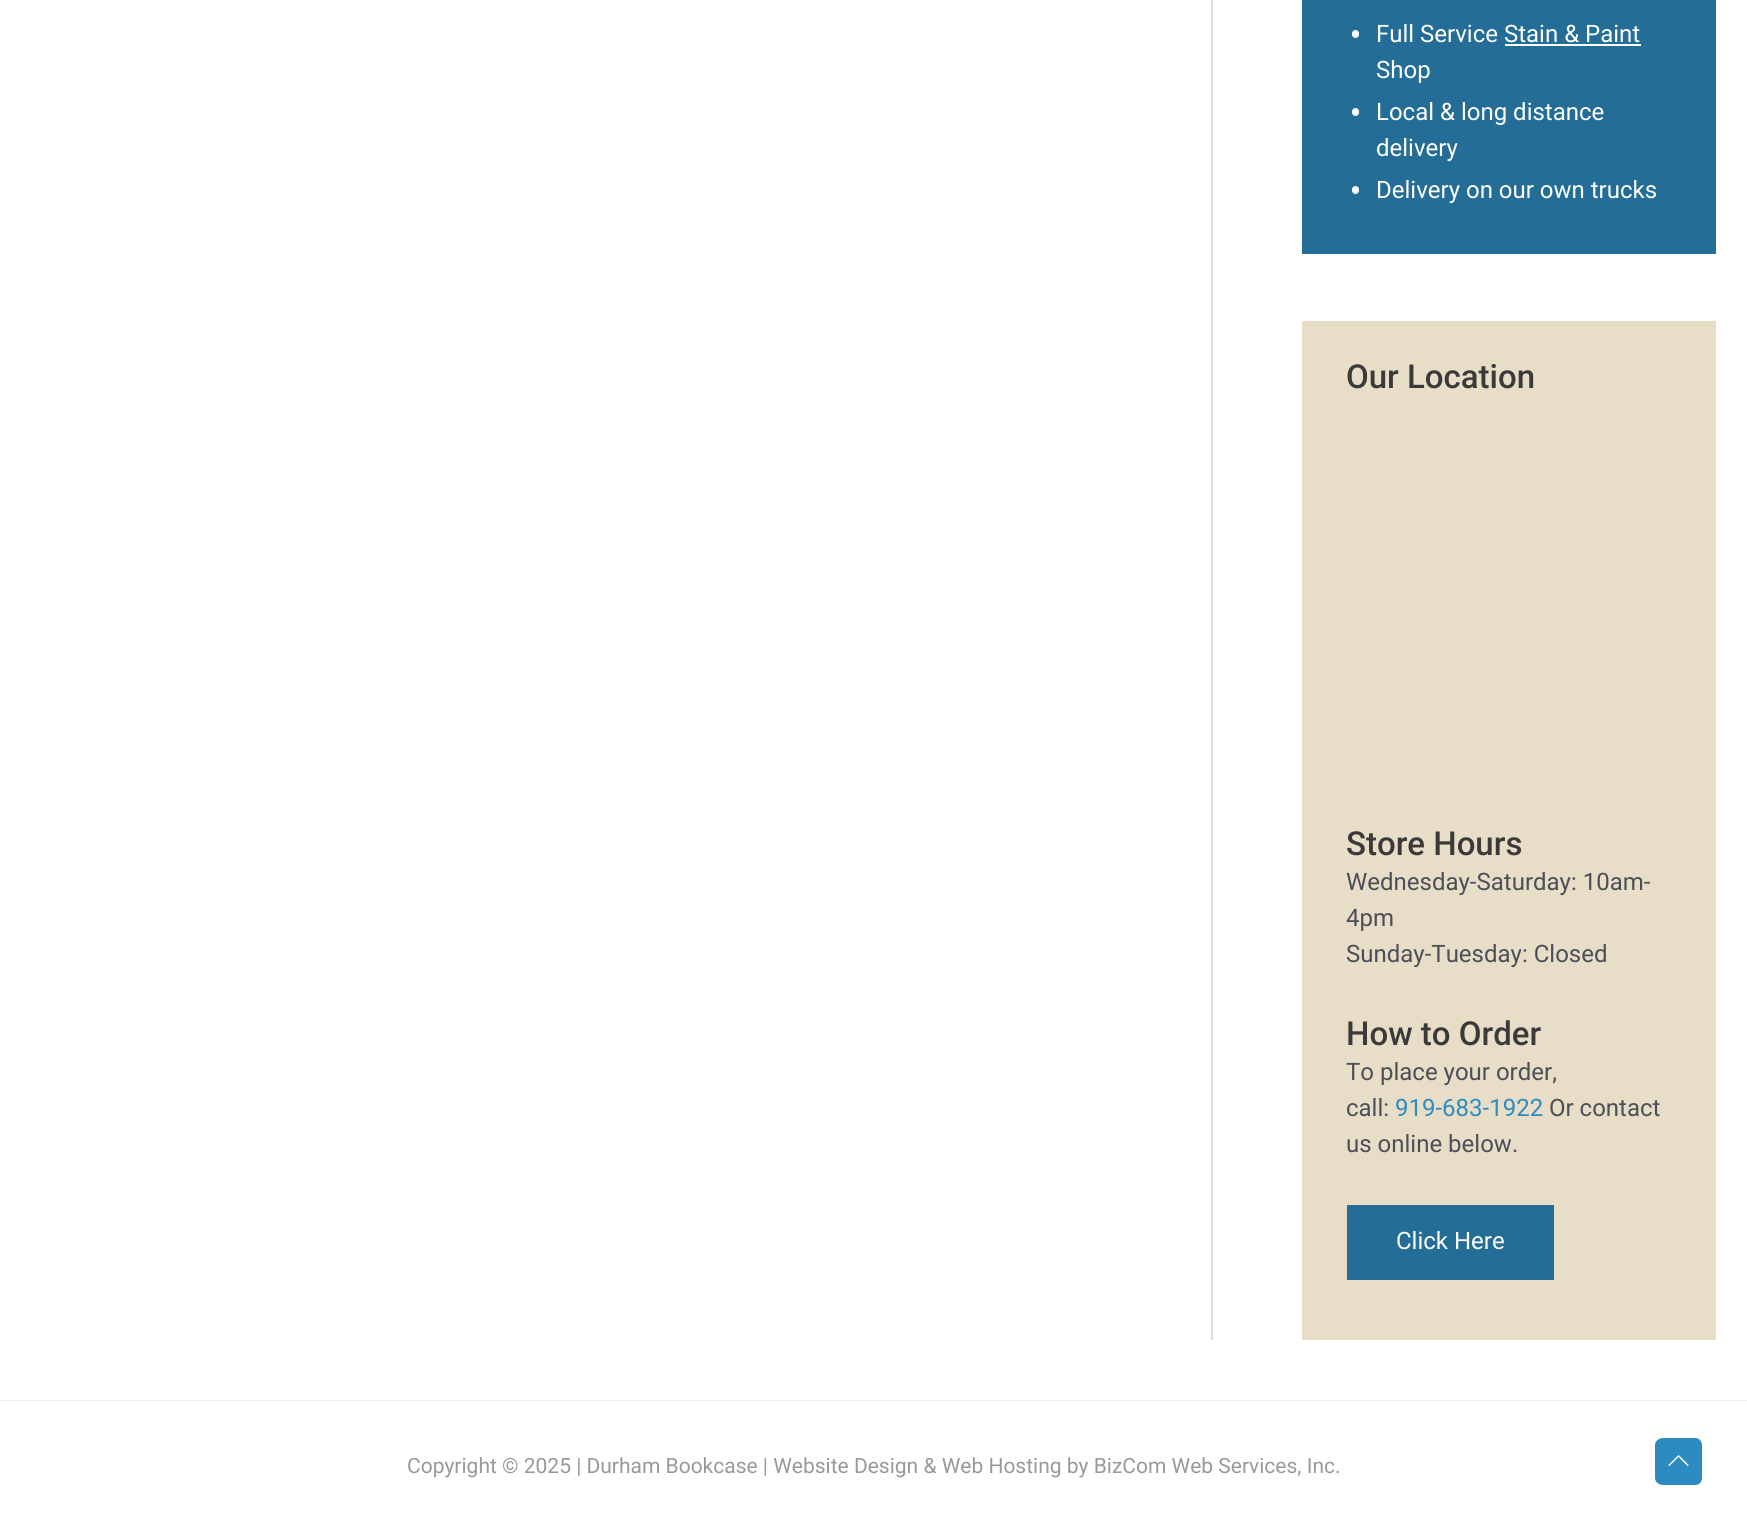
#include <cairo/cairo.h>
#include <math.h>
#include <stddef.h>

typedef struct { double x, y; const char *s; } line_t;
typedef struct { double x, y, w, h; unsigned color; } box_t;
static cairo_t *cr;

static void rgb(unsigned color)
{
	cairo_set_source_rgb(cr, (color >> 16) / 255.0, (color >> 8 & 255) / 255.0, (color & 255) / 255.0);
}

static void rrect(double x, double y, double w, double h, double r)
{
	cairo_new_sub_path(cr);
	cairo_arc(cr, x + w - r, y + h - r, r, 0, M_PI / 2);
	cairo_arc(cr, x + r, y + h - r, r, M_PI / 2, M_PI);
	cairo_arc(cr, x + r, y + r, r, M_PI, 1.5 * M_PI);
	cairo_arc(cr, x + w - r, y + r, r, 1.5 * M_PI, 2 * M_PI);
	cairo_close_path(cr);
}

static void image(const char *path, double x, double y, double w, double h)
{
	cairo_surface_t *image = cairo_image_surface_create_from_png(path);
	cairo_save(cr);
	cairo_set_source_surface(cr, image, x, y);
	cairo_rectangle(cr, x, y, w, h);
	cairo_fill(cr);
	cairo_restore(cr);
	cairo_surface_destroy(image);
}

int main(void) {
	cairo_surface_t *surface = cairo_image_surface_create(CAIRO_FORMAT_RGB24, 1747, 1530);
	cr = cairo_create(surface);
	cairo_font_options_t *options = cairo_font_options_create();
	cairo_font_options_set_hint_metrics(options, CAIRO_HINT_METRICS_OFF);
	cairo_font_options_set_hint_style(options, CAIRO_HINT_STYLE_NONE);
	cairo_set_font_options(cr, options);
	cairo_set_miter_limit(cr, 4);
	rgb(0xffffff);
	cairo_paint(cr);
	rgb(0xdddddd);
	cairo_rectangle(cr, 1211, 0, 2, 1340);
	cairo_fill(cr);
	rgb(0x236d97);
	cairo_rectangle(cr, 1302, 0, 414, 254);
	cairo_fill(cr);
	rgb(0xffffff);
	rrect(1352, 30, 7, 8, 3.5);
	cairo_fill(cr);
	cairo_rectangle(cr, 1505, 44, 136, 2);
	cairo_fill(cr);
	rrect(1352, 108, 7, 8, 3.5);
	cairo_fill(cr);
	rrect(1352, 186, 7, 8, 3.5);
	cairo_fill(cr);
	{
		static const box_t items[] = {
			{1302, 321, 414, 1019, 0xe8dec7},
			{1347, 1205, 207, 75, 0x236d97},
			{0, 1400, 1747, 1, 0xeeeeee},
		};
		for (size_t i = 0; i < sizeof items / sizeof *items; i++) {
			rgb(items[i].color);
			cairo_rectangle(cr, items[i].x, items[i].y, items[i].w, items[i].h);
			cairo_fill(cr);
		}
	}
	rgb(0x2c8bc0);
	cairo_new_path(cr);
	cairo_move_to(cr, 1695, 1485);
	cairo_line_to(cr, 1663, 1485);
	cairo_curve_to(cr, 1659, 1485, 1655, 1482, 1655, 1478);
	cairo_line_to(cr, 1655, 1445);
	cairo_curve_to(cr, 1655, 1441, 1659, 1438, 1663, 1438);
	cairo_line_to(cr, 1695, 1438);
	cairo_curve_to(cr, 1699, 1438, 1702, 1441, 1702, 1445);
	cairo_line_to(cr, 1702, 1478);
	cairo_curve_to(cr, 1702, 1482, 1699, 1485, 1695, 1485);
	cairo_close_path(cr);
	cairo_fill(cr);
	image("img/1.png", 1668, 1455, 21, 11);
	cairo_select_font_face(cr, "Roboto", CAIRO_FONT_SLANT_NORMAL, CAIRO_FONT_WEIGHT_NORMAL);
	cairo_set_font_size(cr, 24);
	rgb(0xffffff);
	{
		static const line_t items[] = {
			{1376, 42, "Full Service Stain & Paint"},
			{1376, 78, "Shop"},
			{1376, 120, "Local & long distance"},
			{1376, 156, "delivery"},
			{1376, 198, "Delivery on our own trucks"},
		};
		for (size_t i = 0; i < sizeof items / sizeof *items; i++) {
			cairo_move_to(cr, items[i].x, items[i].y);
			cairo_show_text(cr, items[i].s);
		}
	}
	cairo_select_font_face(cr, "Roboto Medium", CAIRO_FONT_SLANT_NORMAL, CAIRO_FONT_WEIGHT_NORMAL);
	cairo_set_font_size(cr, 33);
	rgb(0x3a3a3a);
	cairo_move_to(cr, 1346, 388);
	cairo_show_text(cr, "Our Location");
	cairo_move_to(cr, 1346, 855);
	cairo_show_text(cr, "Store Hours");
	cairo_select_font_face(cr, "Roboto", CAIRO_FONT_SLANT_NORMAL, CAIRO_FONT_WEIGHT_NORMAL);
	cairo_set_font_size(cr, 24);
	rgb(0x4b4f58);
	{
		static const line_t items[] = {
			{1346, 890, "Wednesday-Saturday: 10am-"},
			{1346, 926, "4pm"},
			{1346, 962, "Sunday-Tuesday: Closed"},
		};
		for (size_t i = 0; i < sizeof items / sizeof *items; i++) {
			cairo_move_to(cr, items[i].x, items[i].y);
			cairo_show_text(cr, items[i].s);
		}
	}
	cairo_select_font_face(cr, "Roboto Medium", CAIRO_FONT_SLANT_NORMAL, CAIRO_FONT_WEIGHT_NORMAL);
	cairo_set_font_size(cr, 33);
	rgb(0x3a3a3a);
	cairo_move_to(cr, 1346, 1045);
	cairo_show_text(cr, "How to Order");
	cairo_select_font_face(cr, "Roboto", CAIRO_FONT_SLANT_NORMAL, CAIRO_FONT_WEIGHT_NORMAL);
	cairo_set_font_size(cr, 24);
	rgb(0x4b4f58);
	cairo_move_to(cr, 1346, 1080);
	cairo_show_text(cr, "To place your order,");
	cairo_move_to(cr, 1346, 1116);
	cairo_show_text(cr, "call:");
	rgb(0x2c8bc0);
	cairo_move_to(cr, 1395, 1116);
	cairo_show_text(cr, "919-683-1922");
	rgb(0x4b4f58);
	cairo_move_to(cr, 1549, 1116);
	cairo_show_text(cr, "Or contact");
	cairo_move_to(cr, 1346, 1152);
	cairo_show_text(cr, "us online below.");
	rgb(0xffffff);
	cairo_move_to(cr, 1396, 1249);
	cairo_show_text(cr, "Click Here");
	cairo_set_font_size(cr, 21);
	rgb(0x999999);
	cairo_move_to(cr, 407, 1473);
	cairo_show_text(cr, "Copyright © 2025 | Durham Bookcase | Website Design & Web Hosting by BizCom Web Services, Inc.");
	cairo_surface_write_to_png(surface, "page.png");
	cairo_font_options_destroy(options);
	cairo_destroy(cr);
	cairo_surface_destroy(surface);
	return 0;
}
